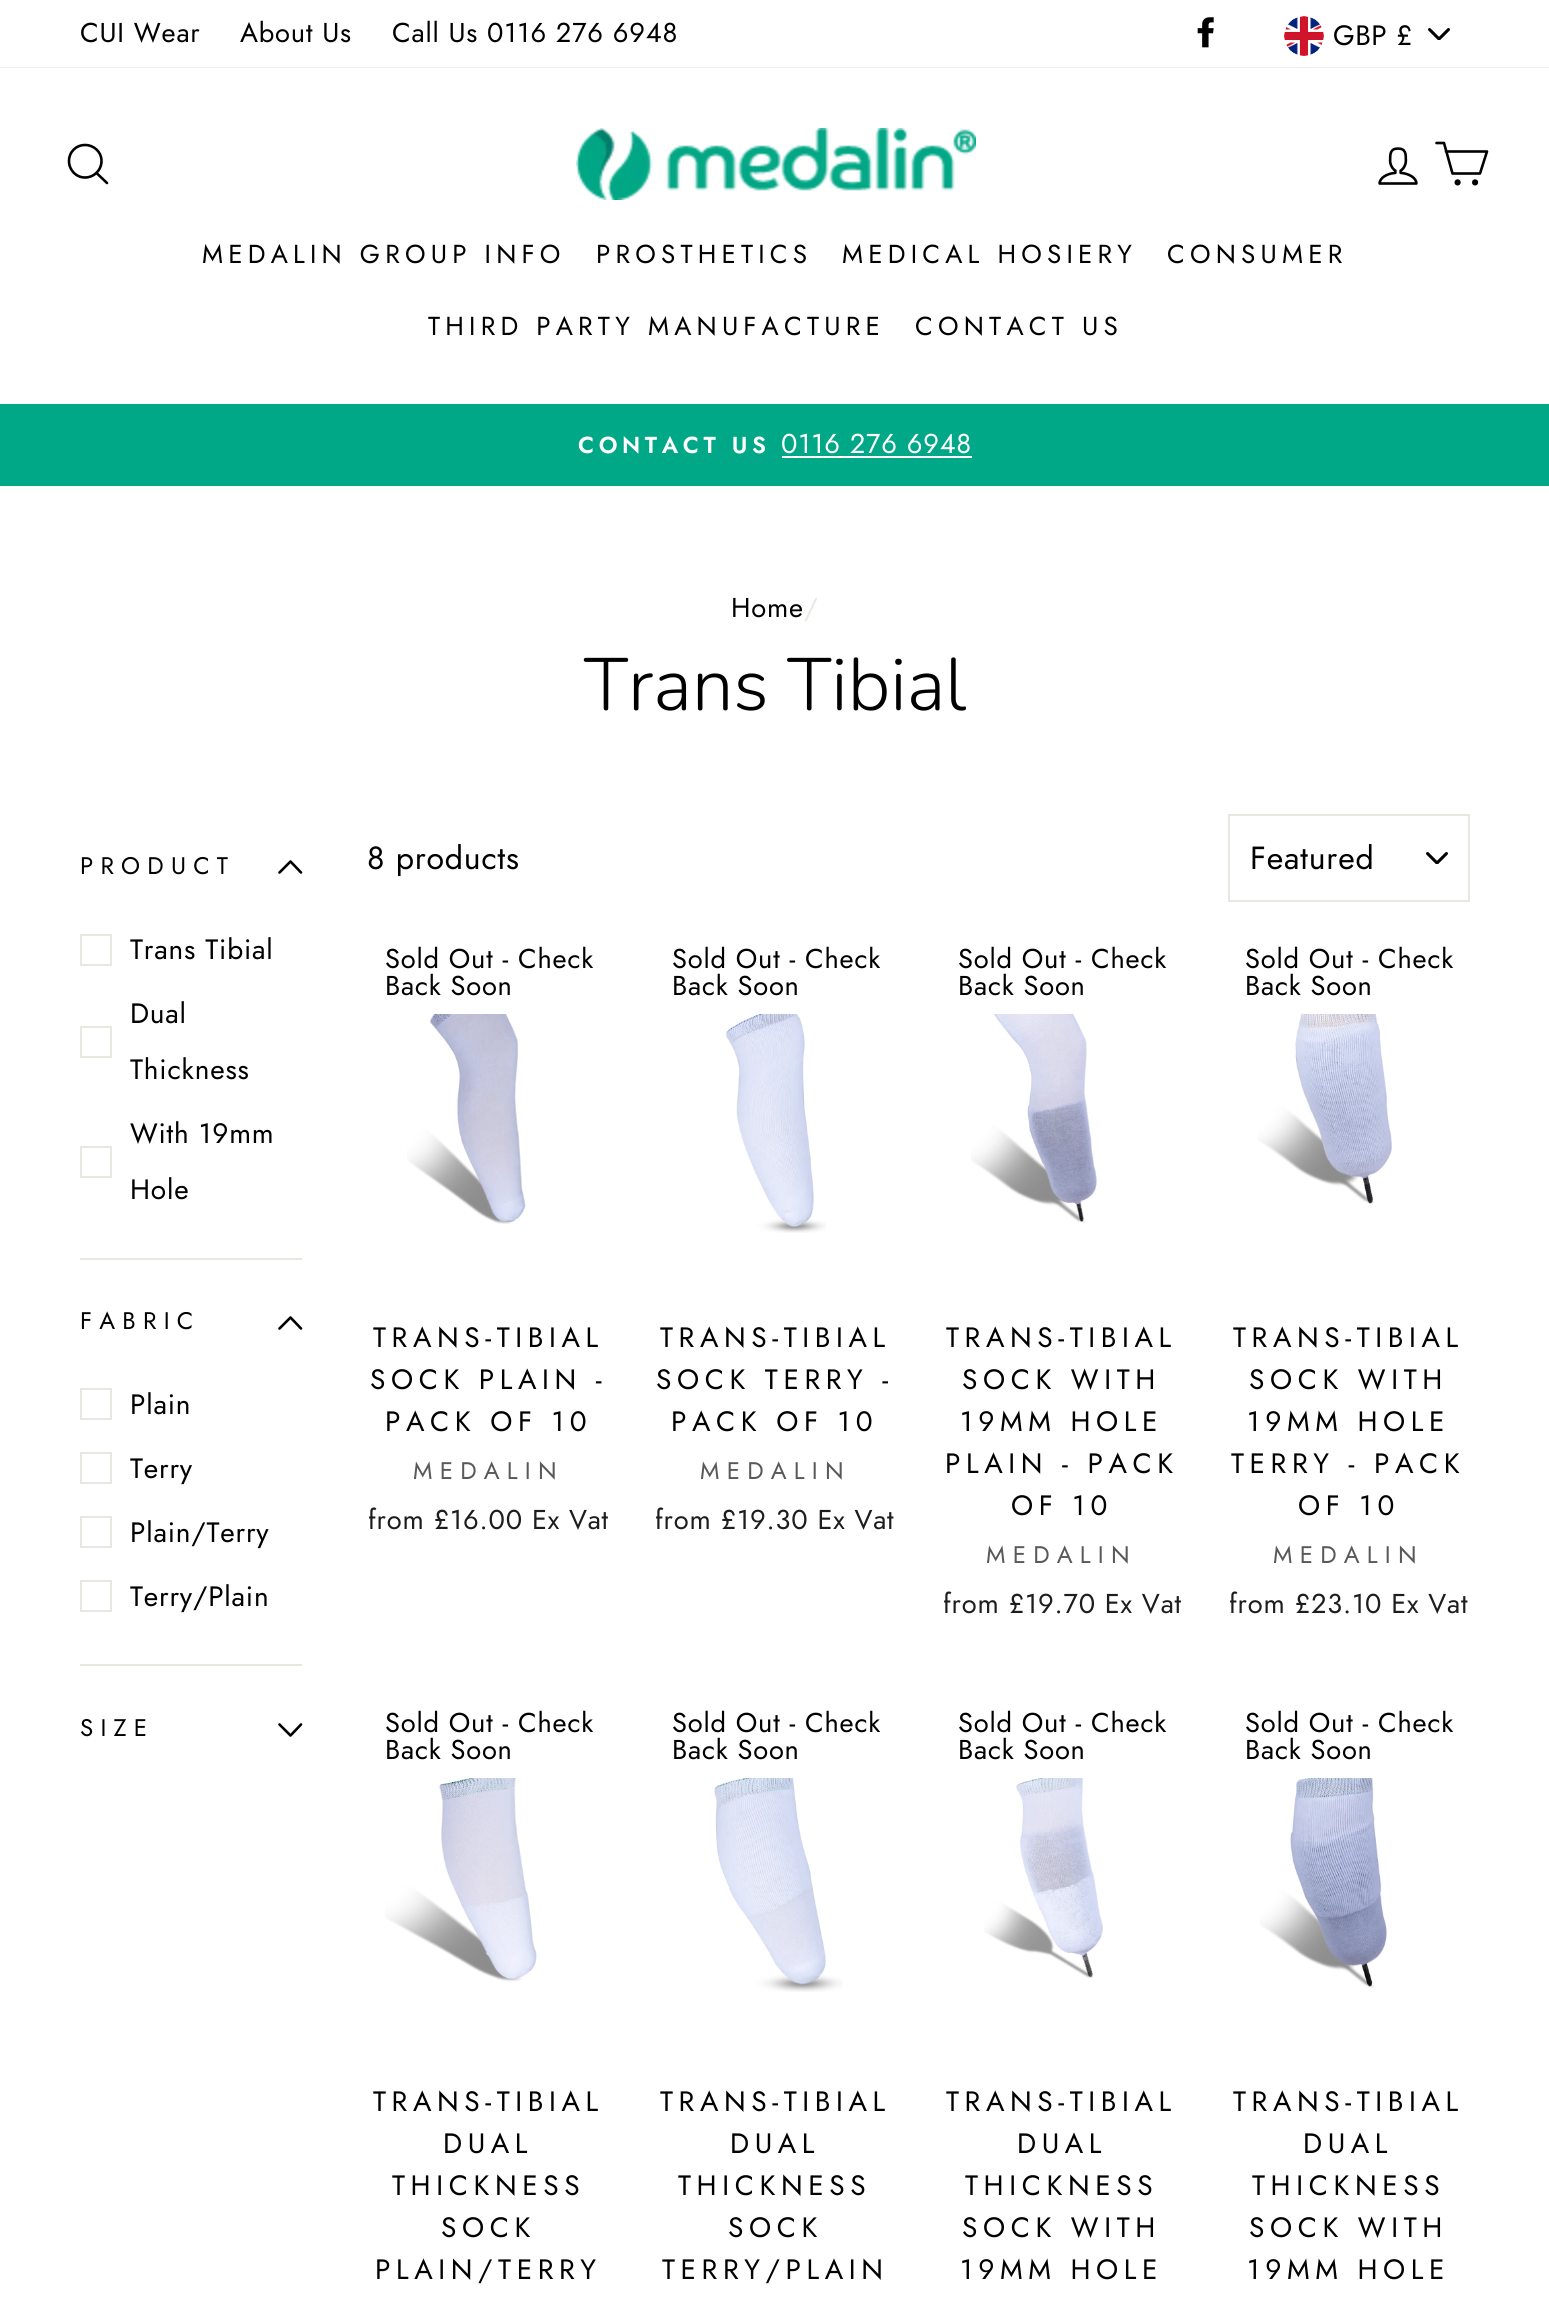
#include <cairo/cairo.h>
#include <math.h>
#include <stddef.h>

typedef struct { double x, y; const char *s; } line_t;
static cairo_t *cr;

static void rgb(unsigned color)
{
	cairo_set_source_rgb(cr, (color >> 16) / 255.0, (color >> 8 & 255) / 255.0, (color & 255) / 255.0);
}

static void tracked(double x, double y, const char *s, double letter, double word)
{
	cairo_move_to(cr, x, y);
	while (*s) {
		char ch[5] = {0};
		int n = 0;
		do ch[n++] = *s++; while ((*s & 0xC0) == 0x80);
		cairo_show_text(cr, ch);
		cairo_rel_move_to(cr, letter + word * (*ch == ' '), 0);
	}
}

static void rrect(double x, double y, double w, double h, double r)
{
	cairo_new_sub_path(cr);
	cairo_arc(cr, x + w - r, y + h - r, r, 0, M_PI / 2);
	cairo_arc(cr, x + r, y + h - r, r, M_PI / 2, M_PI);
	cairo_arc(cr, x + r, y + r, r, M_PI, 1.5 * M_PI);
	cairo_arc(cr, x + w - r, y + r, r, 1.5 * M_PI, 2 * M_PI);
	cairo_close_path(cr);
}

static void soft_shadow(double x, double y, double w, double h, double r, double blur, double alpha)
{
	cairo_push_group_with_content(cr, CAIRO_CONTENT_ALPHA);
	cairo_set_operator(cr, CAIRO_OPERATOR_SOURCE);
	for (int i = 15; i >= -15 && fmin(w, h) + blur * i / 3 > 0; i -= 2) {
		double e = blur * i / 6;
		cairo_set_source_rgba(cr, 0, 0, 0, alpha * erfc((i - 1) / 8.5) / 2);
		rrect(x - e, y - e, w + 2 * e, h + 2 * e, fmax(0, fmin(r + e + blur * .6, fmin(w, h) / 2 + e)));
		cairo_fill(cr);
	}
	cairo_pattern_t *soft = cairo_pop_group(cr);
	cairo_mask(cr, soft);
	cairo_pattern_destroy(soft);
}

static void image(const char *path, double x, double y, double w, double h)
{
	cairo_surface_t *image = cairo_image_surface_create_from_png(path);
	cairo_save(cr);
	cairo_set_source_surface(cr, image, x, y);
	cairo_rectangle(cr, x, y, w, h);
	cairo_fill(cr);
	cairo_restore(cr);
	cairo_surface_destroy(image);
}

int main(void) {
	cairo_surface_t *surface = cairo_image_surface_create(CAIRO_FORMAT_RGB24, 1549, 2306);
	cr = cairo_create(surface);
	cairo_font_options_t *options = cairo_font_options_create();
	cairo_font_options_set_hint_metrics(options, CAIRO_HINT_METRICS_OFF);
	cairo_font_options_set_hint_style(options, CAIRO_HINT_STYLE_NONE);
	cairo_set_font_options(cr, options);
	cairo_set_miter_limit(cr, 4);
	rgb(0xffffff);
	cairo_paint(cr);
	image("img/1.png", 1197, 17, 17, 31);
	image("img/2.png", 1428, 28, 22, 12);
	image("img/3.png", 1284, 16, 40, 40);
	cairo_save(cr);
	cairo_rectangle(cr, 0, 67, 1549, 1);
	cairo_clip(cr);
	rgb(0x000000);
	soft_shadow(0, 68, 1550, 336, 0, 1, 0.2);
	cairo_restore(cr);
	cairo_new_path(cr);
	cairo_move_to(cr, 101.5, 161);
	cairo_curve_to(cr, 101.5, 170, 94, 177.5, 85, 177.5);
	cairo_curve_to(cr, 76, 177.5, 69, 170, 69, 161);
	cairo_curve_to(cr, 69, 152, 76, 145, 85, 145);
	cairo_curve_to(cr, 94, 145, 101.5, 152, 101.5, 161);
	cairo_close_path(cr);
	cairo_move_to(cr, 107, 183);
	cairo_line_to(cr, 96.5, 173);
	rgb(0x000000);
	cairo_set_line_width(cr, 2.6);
	cairo_set_line_cap(cr, CAIRO_LINE_CAP_ROUND);
	cairo_set_line_join(cr, CAIRO_LINE_JOIN_ROUND);
	cairo_stroke(cr);
	image("img/4.png", 576, 128, 400, 72);
	image("img/5.png", 1378, 147, 40, 38);
	cairo_new_path(cr);
	cairo_move_to(cr, 1446, 151.5);
	cairo_line_to(cr, 1487, 151.5);
	cairo_line_to(cr, 1480, 173.5);
	cairo_line_to(cr, 1452.5, 173.5);
	cairo_line_to(cr, 1444, 143);
	cairo_line_to(cr, 1436.5, 143);
	cairo_stroke(cr);
	cairo_arc(cr, 1457.6, 182.4, 1.8, 0, 2 * M_PI);
	cairo_fill_preserve(cr);
	cairo_set_line_cap(cr, CAIRO_LINE_CAP_BUTT);
	cairo_set_line_join(cr, CAIRO_LINE_JOIN_MITER);
	cairo_stroke(cr);
	cairo_arc(cr, 1475.1, 182.4, 1.8, 0, 2 * M_PI);
	cairo_fill_preserve(cr);
	cairo_stroke(cr);
	rgb(0x00a887);
	cairo_rectangle(cr, 0, 404, 1549, 82);
	cairo_fill(cr);
	rgb(0xffffff);
	cairo_rectangle(cr, 782, 456, 190, 2);
	cairo_fill(cr);
	cairo_new_path(cr);
	cairo_move_to(cr, 279.5, 872.5);
	cairo_line_to(cr, 290.5, 861.5);
	cairo_line_to(cr, 301, 872.5);
	rgb(0x000000);
	cairo_set_line_cap(cr, CAIRO_LINE_CAP_ROUND);
	cairo_set_line_join(cr, CAIRO_LINE_JOIN_ROUND);
	cairo_stroke(cr);
	cairo_rectangle(cr, 81, 935, 30, 30);
	rgb(0xe8e8e1);
	cairo_set_line_width(cr, 2);
	cairo_set_line_cap(cr, CAIRO_LINE_CAP_BUTT);
	cairo_set_line_join(cr, CAIRO_LINE_JOIN_MITER);
	cairo_stroke(cr);
	cairo_rectangle(cr, 81, 1027, 30, 30);
	cairo_stroke(cr);
	cairo_rectangle(cr, 81, 1147, 30, 30);
	cairo_stroke(cr);
	cairo_rectangle(cr, 80, 1258, 222, 2);
	cairo_fill(cr);
	cairo_new_path(cr);
	cairo_move_to(cr, 279.5, 1328.5);
	cairo_line_to(cr, 290.5, 1317.5);
	cairo_line_to(cr, 301, 1328.5);
	rgb(0x000000);
	cairo_set_line_width(cr, 2.6);
	cairo_set_line_cap(cr, CAIRO_LINE_CAP_ROUND);
	cairo_set_line_join(cr, CAIRO_LINE_JOIN_ROUND);
	cairo_stroke(cr);
	cairo_rectangle(cr, 81, 1389, 30, 30);
	rgb(0xe8e8e1);
	cairo_set_line_width(cr, 2);
	cairo_set_line_cap(cr, CAIRO_LINE_CAP_BUTT);
	cairo_set_line_join(cr, CAIRO_LINE_JOIN_MITER);
	cairo_stroke(cr);
	cairo_rectangle(cr, 81, 1453, 30, 30);
	cairo_stroke(cr);
	cairo_rectangle(cr, 81, 1517, 30, 30);
	cairo_stroke(cr);
	cairo_rectangle(cr, 81, 1581, 30, 30);
	cairo_stroke(cr);
	cairo_rectangle(cr, 80, 1664, 222, 2);
	cairo_fill(cr);
	cairo_new_path(cr);
	cairo_move_to(cr, 279.5, 1724.5);
	cairo_line_to(cr, 290.5, 1735.5);
	cairo_line_to(cr, 301, 1724.5);
	rgb(0x000000);
	cairo_set_line_width(cr, 2.6);
	cairo_set_line_cap(cr, CAIRO_LINE_CAP_ROUND);
	cairo_set_line_join(cr, CAIRO_LINE_JOIN_ROUND);
	cairo_stroke(cr);
	image("img/2.png", 1426, 852, 22, 12);
	cairo_rectangle(cr, 1229, 815, 240, 86);
	rgb(0xe8e8e1);
	cairo_set_line_width(cr, 2);
	cairo_set_line_cap(cr, CAIRO_LINE_CAP_BUTT);
	cairo_set_line_join(cr, CAIRO_LINE_JOIN_MITER);
	cairo_stroke(cr);
	image("img/6.png", 407, 1014, 119, 210);
	image("img/7.png", 726, 1014, 100, 219);
	image("img/8.png", 971, 1014, 126, 209);
	image("img/9.png", 1258, 1014, 134, 190);
	image("img/10.png", 385, 1778, 152, 204);
	image("img/11.png", 714, 1778, 129, 214);
	image("img/12.png", 984, 1778, 119, 201);
	image("img/13.png", 1260, 1778, 127, 210);
	cairo_select_font_face(cr, "Jost", CAIRO_FONT_SLANT_NORMAL, CAIRO_FONT_WEIGHT_NORMAL);
	cairo_set_font_size(cr, 27.25);
	rgb(0x000000);
	{
		static const line_t items[] = {
			{80, 42, "CUI Wear"},
			{240, 42, "About Us"},
			{392, 42, "Call Us 0116 276 6948"},
		};
		for (size_t i = 0; i < sizeof items / sizeof *items; i++) {
			tracked(items[i].x, items[i].y, items[i].s, 0.8, 0);
		}
	}
	cairo_set_font_size(cr, 28);
	tracked(1333, 45, "GBP £", 0.5, 0);
	cairo_set_font_size(cr, 26);
	{
		static const line_t items[] = {
			{202, 263, "MEDALIN GROUP INFO"},
			{596, 263, "PROSTHETICS"},
			{842, 263, "MEDICAL HOSIERY"},
			{1167, 263, "CONSUMER"},
			{428, 335, "THIRD PARTY MANUFACTURE"},
			{915, 335, "CONTACT US"},
		};
		for (size_t i = 0; i < sizeof items / sizeof *items; i++) {
			tracked(items[i].x, items[i].y, items[i].s, 5.2, 0);
		}
	}
	cairo_select_font_face(cr, "Jost SemiBold", CAIRO_FONT_SLANT_NORMAL, CAIRO_FONT_WEIGHT_NORMAL);
	cairo_set_font_size(cr, 23.1);
	rgb(0xffffff);
	tracked(578, 453, "CONTACT US", 4.6, 0);
	cairo_select_font_face(cr, "Jost", CAIRO_FONT_SLANT_NORMAL, CAIRO_FONT_WEIGHT_NORMAL);
	cairo_set_font_size(cr, 27.25);
	tracked(781, 453, "0116 276 6948", 0.8, 0);
	rgb(0x000000);
	tracked(731, 617, "Home", 0.8, 0);
	rgb(0xe8e8e1);
	tracked(804, 617, "/", 0.8, 0);
	cairo_select_font_face(cr, "Nunito Light", CAIRO_FONT_SLANT_NORMAL, CAIRO_FONT_WEIGHT_NORMAL);
	cairo_set_font_size(cr, 74);
	rgb(0x000000);
	cairo_move_to(cr, 584, 710);
	cairo_show_text(cr, "Trans Tibial");
	cairo_select_font_face(cr, "Jost", CAIRO_FONT_SLANT_NORMAL, CAIRO_FONT_WEIGHT_NORMAL);
	cairo_set_font_size(cr, 24);
	tracked(80, 874, "PRODUCT", 7.25, 0);
	cairo_set_font_size(cr, 28);
	{
		static const line_t items[] = {
			{130, 959, "Trans Tibial"},
			{130, 1023, "Dual"},
			{130, 1079, "Thickness"},
			{130, 1143, "With 19mm"},
			{130, 1199, "Hole"},
		};
		for (size_t i = 0; i < sizeof items / sizeof *items; i++) {
			tracked(items[i].x, items[i].y, items[i].s, 0.8, 0);
		}
	}
	cairo_set_font_size(cr, 24);
	tracked(80, 1329, "FABRIC", 7.25, 0);
	cairo_set_font_size(cr, 28);
	{
		static const line_t items[] = {
			{130, 1414, "Plain"},
			{130, 1478, "Terry"},
			{130, 1542, "Plain/Terry"},
			{130, 1606, "Terry/Plain"},
		};
		for (size_t i = 0; i < sizeof items / sizeof *items; i++) {
			tracked(items[i].x, items[i].y, items[i].s, 0.8, 0);
		}
	}
	cairo_set_font_size(cr, 24);
	tracked(80, 1736, "SIZE", 7.25, 0);
	cairo_set_font_size(cr, 32);
	tracked(367, 869, "8 products", 0.8, 0);
	tracked(1250, 869, "Featured", 0.8, 0);
	cairo_set_font_size(cr, 27.25);
	tracked(385, 968, "Sold Out - Check", 0.8, 0);
	tracked(385, 995, "Back Soon", 0.8, 0);
	cairo_set_font_size(cr, 28);
	{
		static const line_t items[] = {
			{373, 1347, "TRANS-TIBIAL"},
			{370, 1389, "SOCK PLAIN -"},
			{385, 1431, "PACK OF 10"},
		};
		for (size_t i = 0; i < sizeof items / sizeof *items; i++) {
			tracked(items[i].x, items[i].y, items[i].s, 5.6, 0);
		}
	}
	cairo_set_font_size(cr, 24);
	rgb(0x595959);
	tracked(413, 1479, "MEDALIN", 7.25, 0);
	cairo_set_font_size(cr, 27.25);
	rgb(0x1c1d1d);
	tracked(368, 1529, "from £16.00 Ex Vat", 0.8, 0);
	rgb(0x000000);
	tracked(672, 968, "Sold Out - Check", 0.8, 0);
	tracked(672, 995, "Back Soon", 0.8, 0);
	cairo_set_font_size(cr, 28);
	{
		static const line_t items[] = {
			{660, 1347, "TRANS-TIBIAL"},
			{656, 1389, "SOCK TERRY -"},
			{671, 1431, "PACK OF 10"},
		};
		for (size_t i = 0; i < sizeof items / sizeof *items; i++) {
			tracked(items[i].x, items[i].y, items[i].s, 5.6, 0);
		}
	}
	cairo_set_font_size(cr, 24);
	rgb(0x595959);
	tracked(700, 1479, "MEDALIN", 7.25, 0);
	cairo_set_font_size(cr, 27.25);
	rgb(0x1c1d1d);
	tracked(655, 1529, "from £19.30 Ex Vat", 0.8, 0);
	rgb(0x000000);
	tracked(958, 968, "Sold Out - Check", 0.8, 0);
	tracked(958, 995, "Back Soon", 0.8, 0);
	cairo_set_font_size(cr, 28);
	{
		static const line_t items[] = {
			{946, 1347, "TRANS-TIBIAL"},
			{962, 1389, "SOCK WITH"},
			{960, 1431, "19MM HOLE"},
			{945, 1473, "PLAIN - PACK"},
			{1011, 1515, "OF 10"},
		};
		for (size_t i = 0; i < sizeof items / sizeof *items; i++) {
			tracked(items[i].x, items[i].y, items[i].s, 5.6, 0);
		}
	}
	cairo_set_font_size(cr, 24);
	rgb(0x595959);
	tracked(986, 1563, "MEDALIN", 7.25, 0);
	cairo_set_font_size(cr, 27.25);
	rgb(0x1c1d1d);
	tracked(943, 1613, "from £19.70 Ex Vat", 0.8, 0);
	rgb(0x000000);
	tracked(1245, 968, "Sold Out - Check", 0.8, 0);
	tracked(1245, 995, "Back Soon", 0.8, 0);
	cairo_set_font_size(cr, 28);
	{
		static const line_t items[] = {
			{1233, 1347, "TRANS-TIBIAL"},
			{1249, 1389, "SOCK WITH"},
			{1247, 1431, "19MM HOLE"},
			{1231, 1473, "TERRY - PACK"},
			{1298, 1515, "OF 10"},
		};
		for (size_t i = 0; i < sizeof items / sizeof *items; i++) {
			tracked(items[i].x, items[i].y, items[i].s, 5.6, 0);
		}
	}
	cairo_set_font_size(cr, 24);
	rgb(0x595959);
	tracked(1273, 1563, "MEDALIN", 7.25, 0);
	cairo_set_font_size(cr, 27.25);
	rgb(0x1c1d1d);
	tracked(1229, 1613, "from £23.10 Ex Vat", 0.8, 0);
	rgb(0x000000);
	tracked(385, 1732, "Sold Out - Check", 0.8, 0);
	tracked(385, 1759, "Back Soon", 0.8, 0);
	cairo_set_font_size(cr, 28);
	{
		static const line_t items[] = {
			{373, 2111, "TRANS-TIBIAL"},
			{443, 2153, "DUAL"},
			{392, 2195, "THICKNESS"},
			{441, 2237, "SOCK"},
			{375, 2279, "PLAIN/TERRY"},
		};
		for (size_t i = 0; i < sizeof items / sizeof *items; i++) {
			tracked(items[i].x, items[i].y, items[i].s, 5.6, 0);
		}
	}
	cairo_set_font_size(cr, 27.25);
	tracked(672, 1732, "Sold Out - Check", 0.8, 0);
	tracked(672, 1759, "Back Soon", 0.8, 0);
	cairo_set_font_size(cr, 28);
	{
		static const line_t items[] = {
			{660, 2111, "TRANS-TIBIAL"},
			{730, 2153, "DUAL"},
			{678, 2195, "THICKNESS"},
			{728, 2237, "SOCK"},
			{662, 2279, "TERRY/PLAIN"},
		};
		for (size_t i = 0; i < sizeof items / sizeof *items; i++) {
			tracked(items[i].x, items[i].y, items[i].s, 5.6, 0);
		}
	}
	cairo_set_font_size(cr, 27.25);
	tracked(958, 1732, "Sold Out - Check", 0.8, 0);
	tracked(958, 1759, "Back Soon", 0.8, 0);
	cairo_set_font_size(cr, 28);
	{
		static const line_t items[] = {
			{946, 2111, "TRANS-TIBIAL"},
			{1017, 2153, "DUAL"},
			{965, 2195, "THICKNESS"},
			{962, 2237, "SOCK WITH"},
			{960, 2279, "19MM HOLE"},
		};
		for (size_t i = 0; i < sizeof items / sizeof *items; i++) {
			tracked(items[i].x, items[i].y, items[i].s, 5.6, 0);
		}
	}
	cairo_set_font_size(cr, 27.25);
	tracked(1245, 1732, "Sold Out - Check", 0.8, 0);
	tracked(1245, 1759, "Back Soon", 0.8, 0);
	cairo_set_font_size(cr, 28);
	{
		static const line_t items[] = {
			{1233, 2111, "TRANS-TIBIAL"},
			{1303, 2153, "DUAL"},
			{1252, 2195, "THICKNESS"},
			{1249, 2237, "SOCK WITH"},
			{1247, 2279, "19MM HOLE"},
		};
		for (size_t i = 0; i < sizeof items / sizeof *items; i++) {
			tracked(items[i].x, items[i].y, items[i].s, 5.6, 0);
		}
	}
	cairo_surface_write_to_png(surface, "page.png");
	cairo_font_options_destroy(options);
	cairo_destroy(cr);
	cairo_surface_destroy(surface);
	return 0;
}
